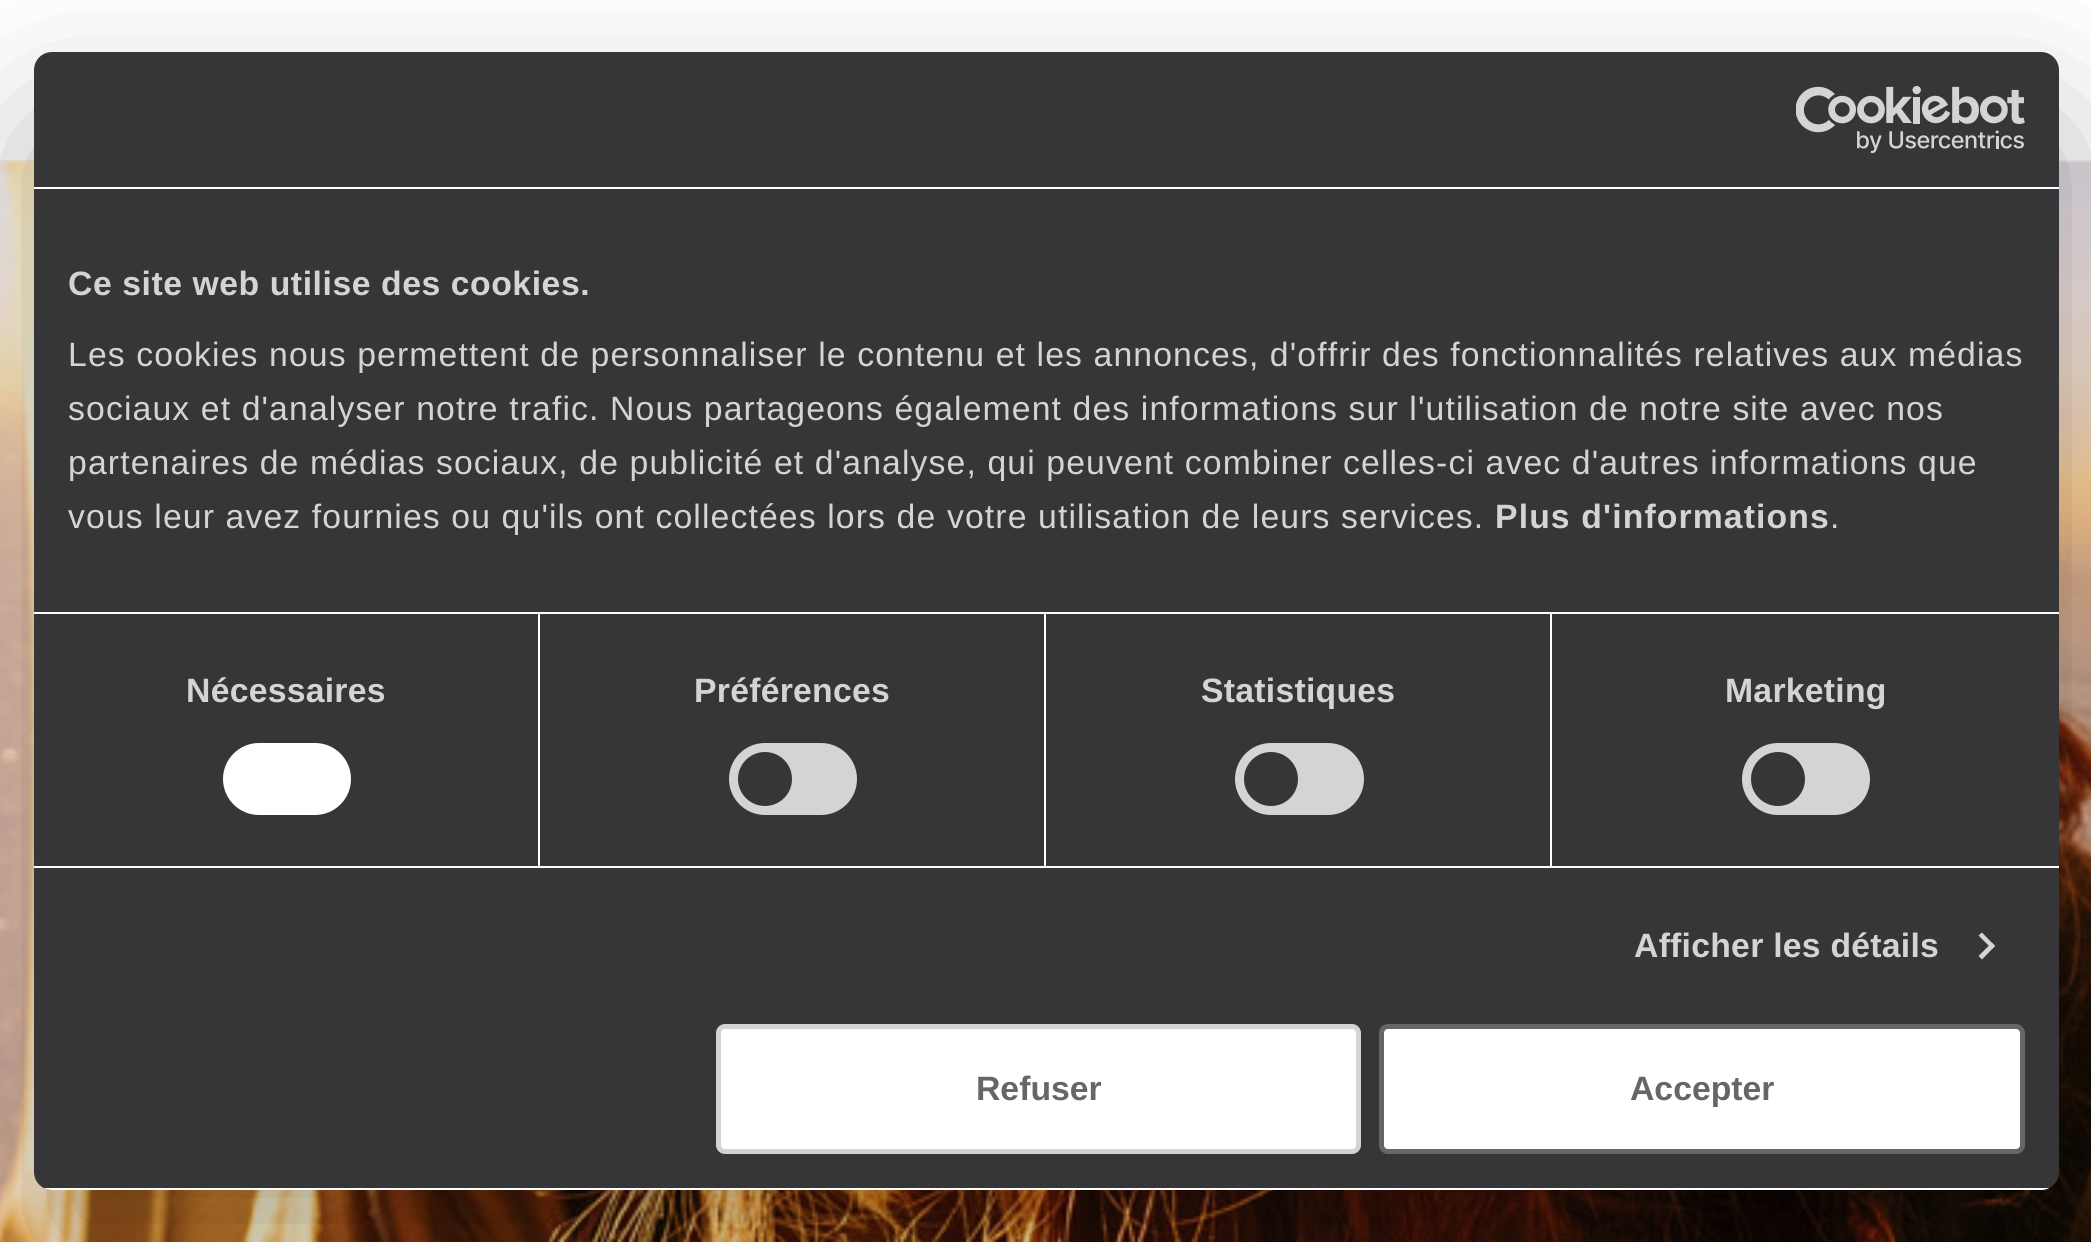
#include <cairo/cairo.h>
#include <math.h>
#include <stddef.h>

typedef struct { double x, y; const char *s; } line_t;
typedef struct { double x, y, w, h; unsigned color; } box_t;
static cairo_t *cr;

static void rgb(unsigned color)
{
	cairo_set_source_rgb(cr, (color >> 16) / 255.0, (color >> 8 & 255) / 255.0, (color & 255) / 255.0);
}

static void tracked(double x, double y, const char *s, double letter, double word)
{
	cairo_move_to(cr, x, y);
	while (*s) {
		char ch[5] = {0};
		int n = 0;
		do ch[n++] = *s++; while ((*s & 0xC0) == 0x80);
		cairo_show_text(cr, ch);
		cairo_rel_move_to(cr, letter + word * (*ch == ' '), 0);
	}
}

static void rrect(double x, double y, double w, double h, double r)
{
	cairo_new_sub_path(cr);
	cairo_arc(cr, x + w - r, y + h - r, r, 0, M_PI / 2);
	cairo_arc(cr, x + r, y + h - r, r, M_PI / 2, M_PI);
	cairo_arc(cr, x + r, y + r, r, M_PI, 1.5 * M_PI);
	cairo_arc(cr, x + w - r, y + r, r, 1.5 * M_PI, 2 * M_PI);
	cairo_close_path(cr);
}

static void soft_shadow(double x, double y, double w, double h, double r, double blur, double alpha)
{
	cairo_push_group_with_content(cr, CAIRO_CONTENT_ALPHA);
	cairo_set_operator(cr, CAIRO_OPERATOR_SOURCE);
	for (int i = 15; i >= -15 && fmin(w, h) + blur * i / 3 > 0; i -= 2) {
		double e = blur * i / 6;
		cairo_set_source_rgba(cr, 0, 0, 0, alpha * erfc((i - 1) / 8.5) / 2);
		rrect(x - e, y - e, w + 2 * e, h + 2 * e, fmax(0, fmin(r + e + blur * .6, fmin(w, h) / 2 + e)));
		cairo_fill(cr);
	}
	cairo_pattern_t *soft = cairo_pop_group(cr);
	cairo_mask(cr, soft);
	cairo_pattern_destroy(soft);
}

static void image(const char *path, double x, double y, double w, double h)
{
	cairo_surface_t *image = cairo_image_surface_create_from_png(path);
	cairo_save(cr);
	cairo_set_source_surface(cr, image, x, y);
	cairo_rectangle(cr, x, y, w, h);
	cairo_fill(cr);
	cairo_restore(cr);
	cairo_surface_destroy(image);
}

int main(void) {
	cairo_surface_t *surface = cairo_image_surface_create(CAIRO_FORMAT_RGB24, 2091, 1242);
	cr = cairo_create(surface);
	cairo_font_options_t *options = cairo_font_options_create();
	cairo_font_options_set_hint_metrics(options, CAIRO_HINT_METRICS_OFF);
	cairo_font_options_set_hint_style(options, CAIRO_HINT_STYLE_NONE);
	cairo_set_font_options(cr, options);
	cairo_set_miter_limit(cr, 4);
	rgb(0xffffff);
	cairo_paint(cr);
	rgb(0xf5f0ea);
	cairo_rectangle(cr, 0, 160, 2091, 2);
	cairo_fill(cr);
	image("img/1.png", 0, 162, 2091, 1080);
	rgb(0x000000);
	soft_shadow(34, 124, 2025, 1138, 18, 76.5, 0.3);
	rgb(0x363639);
	rrect(34, 52, 2025, 1138, 18);
	cairo_fill(cr);
	rgb(0xffffff);
	cairo_rectangle(cr, 34, 187, 2025, 2);
	cairo_fill(cr);
	image("img/2.png", 1796, 86, 229, 67);
	{
		static const box_t items[] = {
			{34, 612, 2025, 2, 0xffffff},
			{34, 866, 2025, 2, 0xffffff},
			{538, 614, 2, 252, 0xffffff},
		};
		for (size_t i = 0; i < sizeof items / sizeof *items; i++) {
			rgb(items[i].color);
			cairo_rectangle(cr, items[i].x, items[i].y, items[i].w, items[i].h);
			cairo_fill(cr);
		}
	}
	rrect(223, 743, 128, 72, 36);
	cairo_fill(cr);
	cairo_rectangle(cr, 1044, 614, 2, 252);
	cairo_fill(cr);
	rgb(0xd4d4d4);
	rrect(729, 743, 128, 72, 36);
	cairo_fill(cr);
	rgb(0x363639);
	cairo_arc(cr, 765, 779, 27, 0, 2 * M_PI);
	cairo_fill(cr);
	rgb(0xffffff);
	cairo_rectangle(cr, 1550, 614, 2, 252);
	cairo_fill(cr);
	rgb(0xd4d4d4);
	rrect(1235, 743, 129, 72, 36);
	cairo_fill(cr);
	rgb(0x363639);
	cairo_arc(cr, 1271, 779, 27, 0, 2 * M_PI);
	cairo_fill(cr);
	rgb(0xd4d4d4);
	rrect(1742, 743, 128, 72, 36);
	cairo_fill(cr);
	rgb(0x363639);
	cairo_arc(cr, 1778, 779, 27, 0, 2 * M_PI);
	cairo_fill(cr);
	rgb(0xd4d4d4);
	cairo_new_path(cr);
	cairo_move_to(cr, 1982, 932.5);
	cairo_line_to(cr, 1995, 946);
	cairo_line_to(cr, 1992, 949);
	cairo_line_to(cr, 1978.5, 935.5);
	cairo_close_path(cr);
	cairo_fill(cr);
	cairo_new_path(cr);
	cairo_move_to(cr, 1992, 942.5);
	cairo_line_to(cr, 1995, 946);
	cairo_line_to(cr, 1982, 959.5);
	cairo_line_to(cr, 1978.5, 956);
	cairo_close_path(cr);
	cairo_fill(cr);
	cairo_save(cr);
	rrect(34, 52, 2025, 1138, 18);
	cairo_clip(cr);
	rgb(0xffffff);
	cairo_rectangle(cr, 44, 1188, 2005, 2);
	cairo_fill(cr);
	cairo_restore(cr);
	rgb(0xffffff);
	rrect(718.5, 1026.5, 640, 125, 6.5);
	cairo_fill_preserve(cr);
	rgb(0xd4d4d4);
	cairo_set_line_width(cr, 5);
	cairo_stroke(cr);
	rgb(0xffffff);
	rrect(1381.5, 1026.5, 641, 125, 6.5);
	cairo_fill_preserve(cr);
	rgb(0x666666);
	cairo_stroke(cr);
	cairo_select_font_face(cr, "Liberation Sans", CAIRO_FONT_SLANT_NORMAL, CAIRO_FONT_WEIGHT_BOLD);
	cairo_set_font_size(cr, 33.75);
	rgb(0xd4d4d4);
	tracked(68, 295, "Ce site web utilise des cookies.", 0.55, 0);
	cairo_select_font_face(cr, "Liberation Sans", CAIRO_FONT_SLANT_NORMAL, CAIRO_FONT_WEIGHT_NORMAL);
	{
		static const line_t items[] = {
			{68, 366, "Les cookies nous permettent de personnaliser le contenu et les annonces, d'offrir des fonctionnalités relatives aux médias"},
			{68, 420, "sociaux et d'analyser notre trafic. Nous partageons également des informations sur l'utilisation de notre site avec nos"},
			{68, 474, "partenaires de médias sociaux, de publicité et d'analyse, qui peuvent combiner celles-ci avec d'autres informations que"},
			{68, 528, "vous leur avez fournies ou qu'ils ont collectées lors de votre utilisation de leurs services."},
		};
		for (size_t i = 0; i < sizeof items / sizeof *items; i++) {
			tracked(items[i].x, items[i].y, items[i].s, 1.12, 0);
		}
	}
	cairo_select_font_face(cr, "Liberation Sans", CAIRO_FONT_SLANT_NORMAL, CAIRO_FONT_WEIGHT_BOLD);
	tracked(1495, 528, "Plus d'informations", 1.12, 0);
	cairo_select_font_face(cr, "Liberation Sans", CAIRO_FONT_SLANT_NORMAL, CAIRO_FONT_WEIGHT_NORMAL);
	tracked(1830, 528, ".", 1.12, 0);
	cairo_select_font_face(cr, "Liberation Sans", CAIRO_FONT_SLANT_NORMAL, CAIRO_FONT_WEIGHT_BOLD);
	{
		static const line_t items[] = {
			{186, 702, "Nécessaires"},
			{694, 702, "Préférences"},
			{1201, 702, "Statistiques"},
			{1725, 702, "Marketing"},
			{1634, 957, "Afficher les détails"},
		};
		for (size_t i = 0; i < sizeof items / sizeof *items; i++) {
			tracked(items[i].x, items[i].y, items[i].s, 0.25, 0);
		}
	}
	rgb(0x666666);
	cairo_move_to(cr, 976, 1100);
	cairo_show_text(cr, "Refuser");
	cairo_move_to(cr, 1630, 1100);
	cairo_show_text(cr, "Accepter");
	cairo_surface_write_to_png(surface, "page.png");
	cairo_font_options_destroy(options);
	cairo_destroy(cr);
	cairo_surface_destroy(surface);
	return 0;
}
